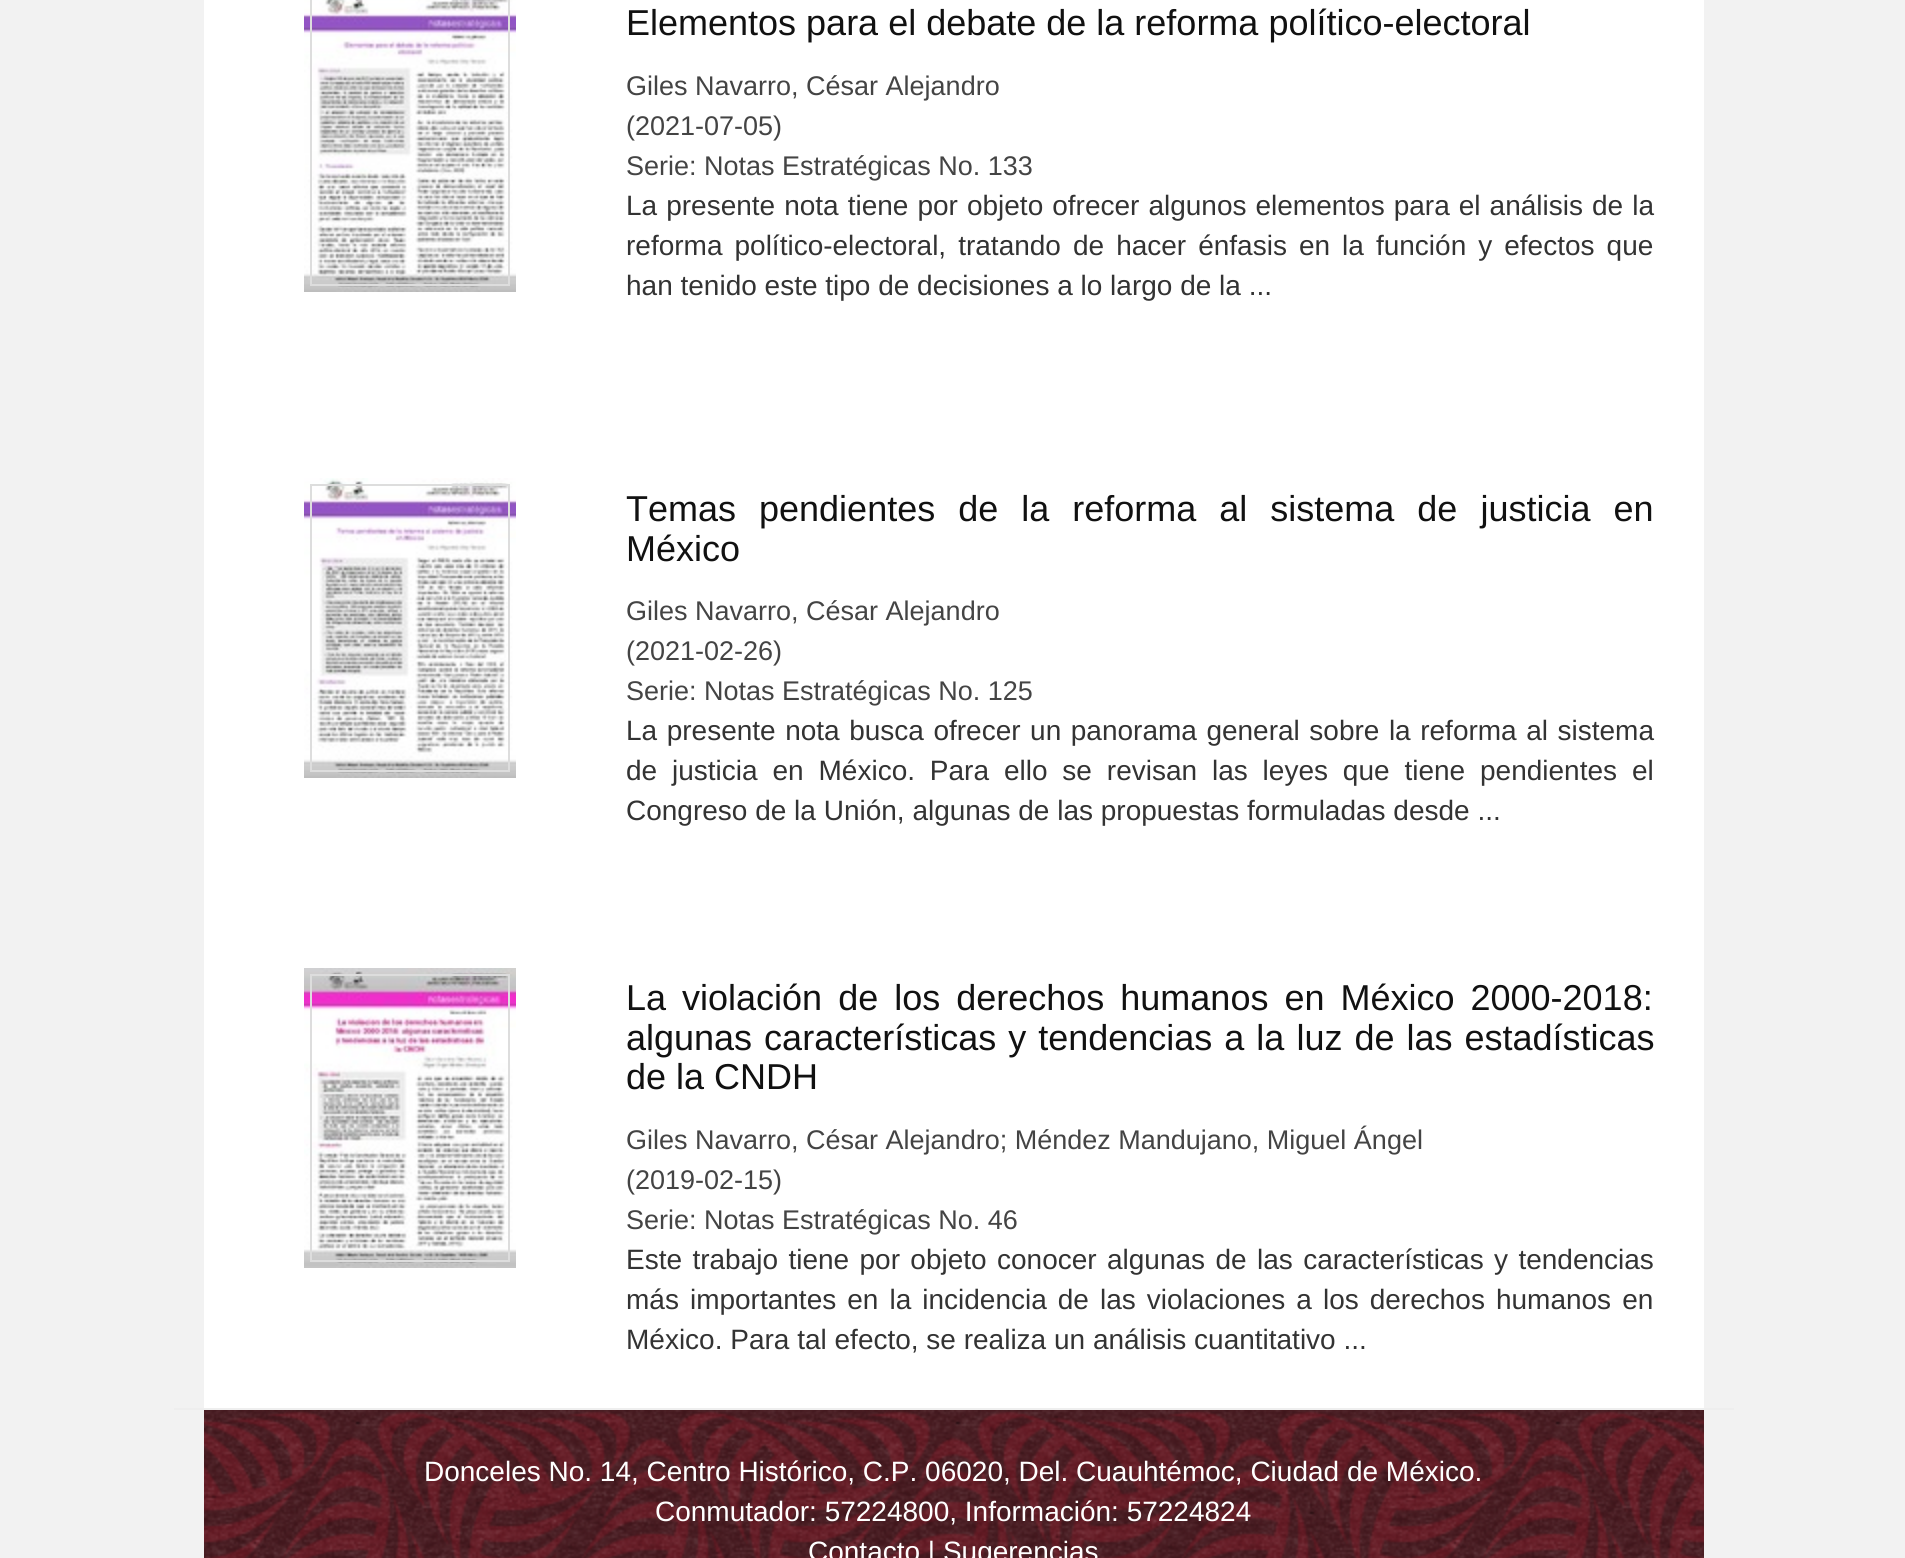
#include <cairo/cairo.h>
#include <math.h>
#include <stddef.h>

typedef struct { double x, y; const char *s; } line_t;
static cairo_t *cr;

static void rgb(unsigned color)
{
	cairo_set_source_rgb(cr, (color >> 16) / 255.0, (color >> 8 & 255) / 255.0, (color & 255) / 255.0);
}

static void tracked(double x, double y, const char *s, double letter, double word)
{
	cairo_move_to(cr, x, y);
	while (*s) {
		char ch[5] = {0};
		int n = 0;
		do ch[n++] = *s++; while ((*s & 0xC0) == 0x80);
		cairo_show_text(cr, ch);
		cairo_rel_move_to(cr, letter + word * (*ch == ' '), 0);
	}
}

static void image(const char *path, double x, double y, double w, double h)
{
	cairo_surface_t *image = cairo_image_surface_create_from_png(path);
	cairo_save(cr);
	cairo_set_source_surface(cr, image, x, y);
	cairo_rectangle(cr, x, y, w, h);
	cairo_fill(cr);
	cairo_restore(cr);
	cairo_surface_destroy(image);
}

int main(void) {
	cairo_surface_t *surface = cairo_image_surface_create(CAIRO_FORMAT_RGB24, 1905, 1558);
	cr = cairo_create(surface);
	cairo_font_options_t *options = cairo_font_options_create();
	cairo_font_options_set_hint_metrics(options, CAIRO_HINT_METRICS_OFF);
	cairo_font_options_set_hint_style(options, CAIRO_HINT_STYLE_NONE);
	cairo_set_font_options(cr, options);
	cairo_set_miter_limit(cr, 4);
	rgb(0xf2f2f2);
	cairo_paint(cr);
	rgb(0xffffff);
	cairo_rectangle(cr, 204, 0, 1500, 1408);
	cairo_fill(cr);
	image("img/1.png", 304, 0, 212, 292);
	cairo_rectangle(cr, 311, -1, 198, 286);
	rgb(0xdddddd);
	cairo_stroke(cr);
	image("img/2.png", 304, 478, 212, 300);
	cairo_rectangle(cr, 311, 485, 198, 286);
	cairo_stroke(cr);
	image("img/3.png", 304, 968, 212, 300);
	cairo_rectangle(cr, 311, 975, 198, 286);
	cairo_stroke(cr);
	image("img/4.png", 204, 1410, 1500, 148);
	rgb(0xeeeeee);
	cairo_rectangle(cr, 174, 1408, 1560, 2);
	cairo_fill(cr);
	cairo_select_font_face(cr, "Liberation Sans", CAIRO_FONT_SLANT_NORMAL, CAIRO_FONT_WEIGHT_NORMAL);
	cairo_set_font_size(cr, 36);
	rgb(0x111111);
	cairo_move_to(cr, 626, 35);
	cairo_show_text(cr, "Elementos para el debate de la reforma político-electoral");
	cairo_set_font_size(cr, 27);
	rgb(0x444444);
	{
		static const line_t items[] = {
			{626, 95, "Giles Navarro, César Alejandro"},
			{626, 135, "(2021-07-05)"},
			{626, 175, "Serie: Notas Estratégicas No. 133"},
		};
		for (size_t i = 0; i < sizeof items / sizeof *items; i++) {
			cairo_move_to(cr, items[i].x, items[i].y);
			cairo_show_text(cr, items[i].s);
		}
	}
	cairo_set_font_size(cr, 28);
	rgb(0x333333);
	tracked(626, 215, "La presente nota tiene por objeto ofrecer algunos elementos para el análisis de la", 0, 1.25);
	tracked(626, 255, "reforma político-electoral, tratando de hacer énfasis en la función y efectos que", 0, 4.25);
	cairo_move_to(cr, 626, 295);
	cairo_show_text(cr, "han tenido este tipo de decisiones a lo largo de la ...");
	cairo_set_font_size(cr, 36);
	rgb(0x111111);
	tracked(626, 521, "Temas pendientes de la reforma al sistema de justicia en", 0, 13);
	cairo_move_to(cr, 626, 561);
	cairo_show_text(cr, "México");
	cairo_set_font_size(cr, 27);
	rgb(0x444444);
	{
		static const line_t items[] = {
			{626, 620, "Giles Navarro, César Alejandro"},
			{626, 660, "(2021-02-26)"},
			{626, 700, "Serie: Notas Estratégicas No. 125"},
		};
		for (size_t i = 0; i < sizeof items / sizeof *items; i++) {
			cairo_move_to(cr, items[i].x, items[i].y);
			cairo_show_text(cr, items[i].s);
		}
	}
	cairo_set_font_size(cr, 28);
	rgb(0x333333);
	tracked(626, 740, "La presente nota busca ofrecer un panorama general sobre la reforma al sistema", 0, 1.75);
	tracked(626, 780, "de justicia en México. Para ello se revisan las leyes que tiene pendientes el", 0, 7.1);
	cairo_move_to(cr, 626, 820);
	cairo_show_text(cr, "Congreso de la Unión, algunas de las propuestas formuladas desde ...");
	cairo_set_font_size(cr, 36);
	rgb(0x111111);
	tracked(626, 1010, "La violación de los derechos humanos en México 2000-2018:", 0, 6);
	tracked(626, 1050, "algunas características y tendencias a la luz de las estadísticas", 0, 2);
	cairo_move_to(cr, 626, 1089);
	cairo_show_text(cr, "de la CNDH");
	cairo_set_font_size(cr, 27);
	rgb(0x444444);
	{
		static const line_t items[] = {
			{626, 1149, "Giles Navarro, César Alejandro; Méndez Mandujano, Miguel Ángel"},
			{626, 1189, "(2019-02-15)"},
			{626, 1229, "Serie: Notas Estratégicas No. 46"},
		};
		for (size_t i = 0; i < sizeof items / sizeof *items; i++) {
			cairo_move_to(cr, items[i].x, items[i].y);
			cairo_show_text(cr, items[i].s);
		}
	}
	cairo_set_font_size(cr, 28);
	rgb(0x333333);
	tracked(626, 1269, "Este trabajo tiene por objeto conocer algunas de las características y tendencias", 0, 2.6);
	tracked(626, 1309, "más importantes en la incidencia de las violaciones a los derechos humanos en", 0, 3.25);
	cairo_move_to(cr, 626, 1349);
	cairo_show_text(cr, "México. Para tal efecto, se realiza un análisis cuantitativo ...");
	rgb(0xffffff);
	{
		static const line_t items[] = {
			{424, 1481, "Donceles No. 14, Centro Histórico, C.P. 06020, Del. Cuauhtémoc, Ciudad de México."},
			{655, 1521, "Conmutador: 57224800, Información: 57224824"},
			{808, 1561, "Contacto | Sugerencias"},
		};
		for (size_t i = 0; i < sizeof items / sizeof *items; i++) {
			cairo_move_to(cr, items[i].x, items[i].y);
			cairo_show_text(cr, items[i].s);
		}
	}
	cairo_surface_write_to_png(surface, "page.png");
	cairo_font_options_destroy(options);
	cairo_destroy(cr);
	cairo_surface_destroy(surface);
	return 0;
}
